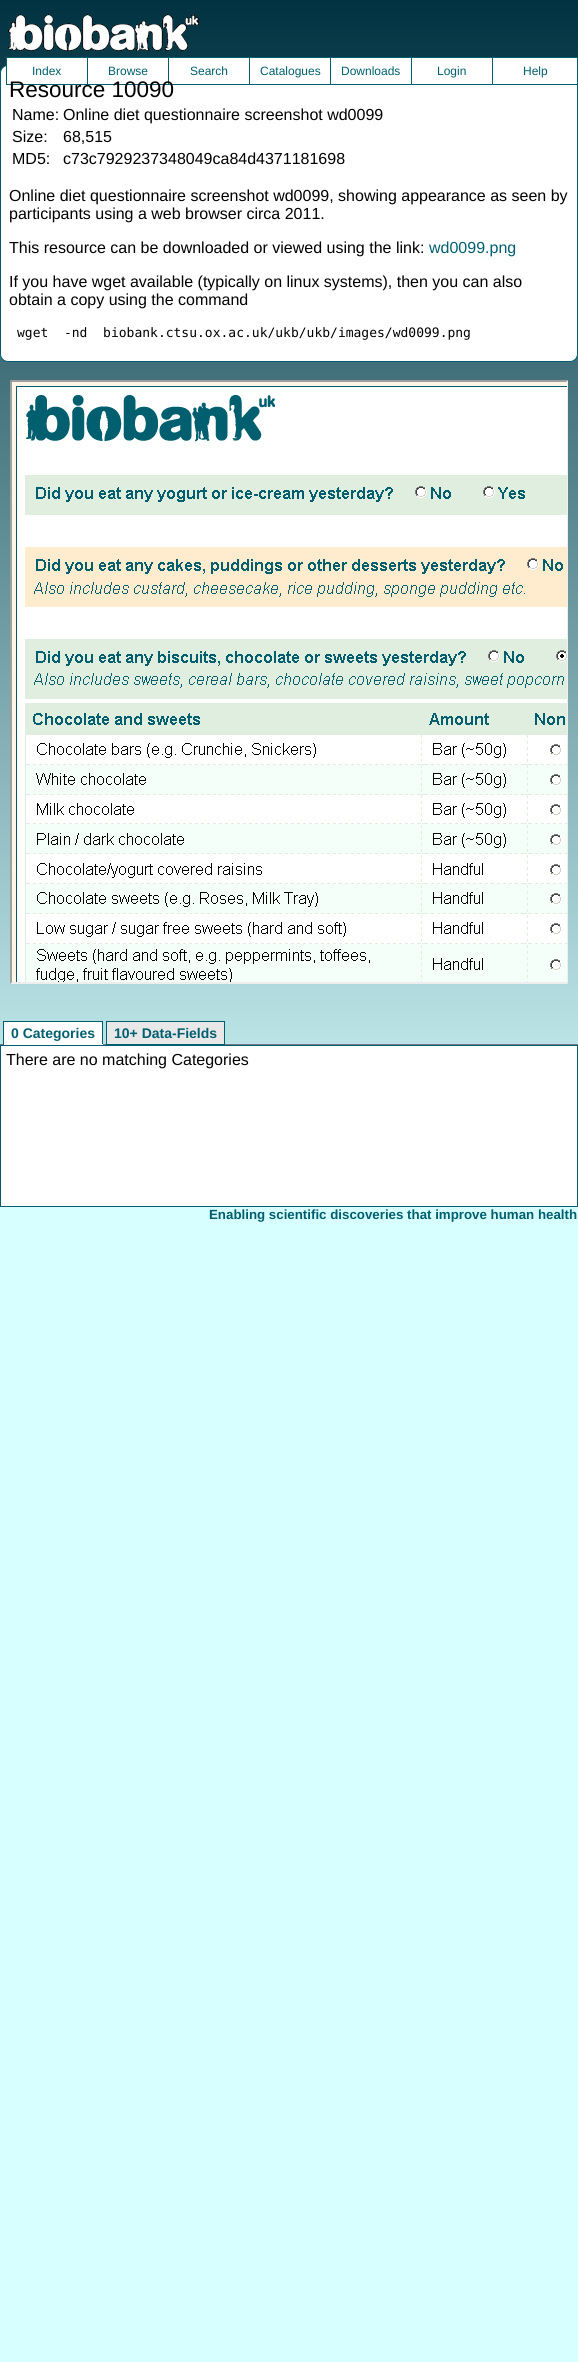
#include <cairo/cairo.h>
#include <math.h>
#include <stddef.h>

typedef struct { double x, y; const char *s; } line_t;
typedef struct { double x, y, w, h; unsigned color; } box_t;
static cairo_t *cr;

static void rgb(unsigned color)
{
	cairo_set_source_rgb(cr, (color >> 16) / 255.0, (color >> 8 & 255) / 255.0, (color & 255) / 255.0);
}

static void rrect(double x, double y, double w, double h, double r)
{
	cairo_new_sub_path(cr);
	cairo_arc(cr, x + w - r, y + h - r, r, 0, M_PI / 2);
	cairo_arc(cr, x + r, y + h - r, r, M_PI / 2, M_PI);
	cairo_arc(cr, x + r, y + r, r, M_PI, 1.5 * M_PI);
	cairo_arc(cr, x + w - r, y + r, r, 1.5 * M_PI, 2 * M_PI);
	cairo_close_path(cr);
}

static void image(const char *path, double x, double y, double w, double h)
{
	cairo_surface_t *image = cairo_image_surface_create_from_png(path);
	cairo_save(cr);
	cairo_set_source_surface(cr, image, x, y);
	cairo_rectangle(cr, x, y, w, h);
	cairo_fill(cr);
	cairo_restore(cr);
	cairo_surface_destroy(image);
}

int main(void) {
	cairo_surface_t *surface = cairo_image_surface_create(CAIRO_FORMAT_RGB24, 578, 2362);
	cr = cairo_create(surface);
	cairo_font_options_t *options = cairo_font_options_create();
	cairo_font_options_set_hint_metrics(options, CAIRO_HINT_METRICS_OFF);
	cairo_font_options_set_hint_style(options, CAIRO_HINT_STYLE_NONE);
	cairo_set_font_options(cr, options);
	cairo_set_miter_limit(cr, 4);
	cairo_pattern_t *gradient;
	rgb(0xd7ffff);
	cairo_paint(cr);
	gradient = cairo_pattern_create_linear(0, 0, 0, 1207);
	cairo_pattern_add_color_stop_rgba(gradient, 0, 0, 0.196, 0.255, 1);
	cairo_pattern_add_color_stop_rgba(gradient, 1, 0.843, 1, 1, 1);
	cairo_set_source(cr, gradient);
	cairo_pattern_destroy(gradient);
	cairo_rectangle(cr, 0, 0, 578, 1044);
	cairo_fill(cr);
	image("img/1.png", 8, 14, 191, 37);
	rgb(0x005f6f);
	cairo_rectangle(cr, 6, 57, 486, 1);
	cairo_fill(cr);
	rgb(0xffffff);
	rrect(0.5, 65.5, 577, 296, 7.5);
	cairo_fill_preserve(cr);
	rgb(0x005f6f);
	cairo_set_line_width(cr, 1);
	cairo_stroke(cr);
	{
		static const box_t items[] = {
			{6, 84, 486, 1, 0x005f6f},
			{6, 57, 1, 28, 0x005f6f},
			{7, 58, 80, 9, 0xffffff},
			{87, 57, 1, 28, 0x005f6f},
			{88, 58, 80, 8, 0xffffff},
			{168, 57, 1, 28, 0x005f6f},
			{169, 58, 80, 8, 0xffffff},
			{249, 57, 1, 28, 0x005f6f},
			{250, 58, 80, 8, 0xffffff},
			{330, 57, 1, 28, 0x005f6f},
			{331, 58, 80, 8, 0xffffff},
			{411, 57, 1, 28, 0x005f6f},
			{412, 58, 80, 8, 0xffffff},
		};
		for (size_t i = 0; i < sizeof items / sizeof *items; i++) {
			rgb(items[i].color);
			cairo_rectangle(cr, items[i].x, items[i].y, items[i].w, items[i].h);
			cairo_fill(cr);
		}
	}
	cairo_rectangle(cr, 492.5, 57.5, 85, 27);
	rgb(0x005f6f);
	cairo_stroke(cr);
	rgb(0xffffff);
	cairo_rectangle(cr, 493, 58, 84, 15);
	cairo_fill(cr);
	rgb(0x9f9f9f);
	cairo_new_path(cr);
	cairo_move_to(cr, 10, 380);
	cairo_line_to(cr, 568, 380);
	cairo_line_to(cr, 566, 382);
	cairo_line_to(cr, 12, 382);
	cairo_close_path(cr);
	cairo_fill(cr);
	rgb(0xeeeeee);
	cairo_new_path(cr);
	cairo_move_to(cr, 568, 380);
	cairo_line_to(cr, 568, 984);
	cairo_line_to(cr, 566, 982);
	cairo_line_to(cr, 566, 382);
	cairo_close_path(cr);
	cairo_fill(cr);
	cairo_new_path(cr);
	cairo_move_to(cr, 568, 984);
	cairo_line_to(cr, 10, 984);
	cairo_line_to(cr, 12, 982);
	cairo_line_to(cr, 566, 982);
	cairo_close_path(cr);
	cairo_fill(cr);
	rgb(0x9f9f9f);
	cairo_new_path(cr);
	cairo_move_to(cr, 10, 984);
	cairo_line_to(cr, 10, 380);
	cairo_line_to(cr, 12, 382);
	cairo_line_to(cr, 12, 982);
	cairo_close_path(cr);
	cairo_fill(cr);
	image("img/2.png", 12, 382, 555, 600);
	{
		static const box_t items[] = {
			{0, 1044, 578, 1, 0x777788},
			{4, 1022, 98, 22, 0xffffff},
			{3, 1021, 100, 1, 0x005f6f},
			{102, 1021, 1, 24, 0x005f6f},
			{3, 1044, 100, 1, 0xffffff},
			{3, 1021, 1, 24, 0x005f6f},
		};
		for (size_t i = 0; i < sizeof items / sizeof *items; i++) {
			rgb(items[i].color);
			cairo_rectangle(cr, items[i].x, items[i].y, items[i].w, items[i].h);
			cairo_fill(cr);
		}
	}
	rgb(0xe8e8e8);
	cairo_rectangle(cr, 106.5, 1021.5, 118, 23);
	cairo_fill_preserve(cr);
	rgb(0x005f6f);
	cairo_stroke(cr);
	rgb(0xffffff);
	cairo_rectangle(cr, 0.5, 1045.5, 577, 161);
	cairo_fill_preserve(cr);
	rgb(0x005f6f);
	cairo_stroke(cr);
	cairo_select_font_face(cr, "Liberation Sans", CAIRO_FONT_SLANT_NORMAL, CAIRO_FONT_WEIGHT_NORMAL);
	cairo_set_font_size(cr, 12);
	{
		static const line_t items[] = {
			{32, 75, "Index"},
			{108, 75, "Browse"},
			{190, 75, "Search"},
			{260, 75, "Catalogues"},
			{341, 75, "Downloads"},
			{437, 75, "Login"},
			{523, 75, "Help"},
		};
		for (size_t i = 0; i < sizeof items / sizeof *items; i++) {
			cairo_move_to(cr, items[i].x, items[i].y);
			cairo_show_text(cr, items[i].s);
		}
	}
	cairo_set_font_size(cr, 22.5);
	rgb(0x000000);
	cairo_move_to(cr, 9, 97);
	cairo_show_text(cr, "Resource 10090");
	cairo_set_font_size(cr, 16);
	{
		static const line_t items[] = {
			{12, 120, "Name:"},
			{63, 120, "Online diet questionnaire screenshot wd0099"},
			{12, 142, "Size:"},
			{63, 142, "68,515"},
			{12, 164, "MD5:"},
			{63, 164, "c73c7929237348049ca84d4371181698"},
			{9, 201, "Online diet questionnaire screenshot wd0099, showing appearance as seen by"},
			{9, 219, "participants using a web browser circa 2011."},
			{9, 253, "This resource can be downloaded or viewed using the link:"},
		};
		for (size_t i = 0; i < sizeof items / sizeof *items; i++) {
			cairo_move_to(cr, items[i].x, items[i].y);
			cairo_show_text(cr, items[i].s);
		}
	}
	rgb(0x005f6f);
	cairo_move_to(cr, 429, 253);
	cairo_show_text(cr, "wd0099.png");
	rgb(0x000000);
	cairo_move_to(cr, 9, 287);
	cairo_show_text(cr, "If you have wget available (typically on linux systems), then you can also");
	cairo_move_to(cr, 9, 305);
	cairo_show_text(cr, "obtain a copy using the command");
	cairo_select_font_face(cr, "DejaVu Sans Mono", CAIRO_FONT_SLANT_NORMAL, CAIRO_FONT_WEIGHT_NORMAL);
	cairo_set_font_size(cr, 13);
	cairo_move_to(cr, 17, 337);
	cairo_show_text(cr, "wget  -nd  biobank.ctsu.ox.ac.uk/ukb/ukb/images/wd0099.png");
	cairo_select_font_face(cr, "Liberation Sans", CAIRO_FONT_SLANT_NORMAL, CAIRO_FONT_WEIGHT_BOLD);
	cairo_set_font_size(cr, 14);
	rgb(0x005f6f);
	cairo_move_to(cr, 11, 1038);
	cairo_show_text(cr, "0 Categories");
	cairo_move_to(cr, 114, 1038);
	cairo_show_text(cr, "10+ Data-Fields");
	cairo_select_font_face(cr, "Liberation Sans", CAIRO_FONT_SLANT_NORMAL, CAIRO_FONT_WEIGHT_NORMAL);
	cairo_set_font_size(cr, 16);
	rgb(0x000000);
	cairo_move_to(cr, 6, 1065);
	cairo_show_text(cr, "There are no matching Categories");
	cairo_select_font_face(cr, "Liberation Sans", CAIRO_FONT_SLANT_NORMAL, CAIRO_FONT_WEIGHT_BOLD);
	cairo_set_font_size(cr, 13.3);
	rgb(0x005f6f);
	cairo_move_to(cr, 209, 1219);
	cairo_show_text(cr, "Enabling scientific discoveries that improve human health");
	cairo_surface_write_to_png(surface, "page.png");
	cairo_font_options_destroy(options);
	cairo_destroy(cr);
	cairo_surface_destroy(surface);
	return 0;
}
